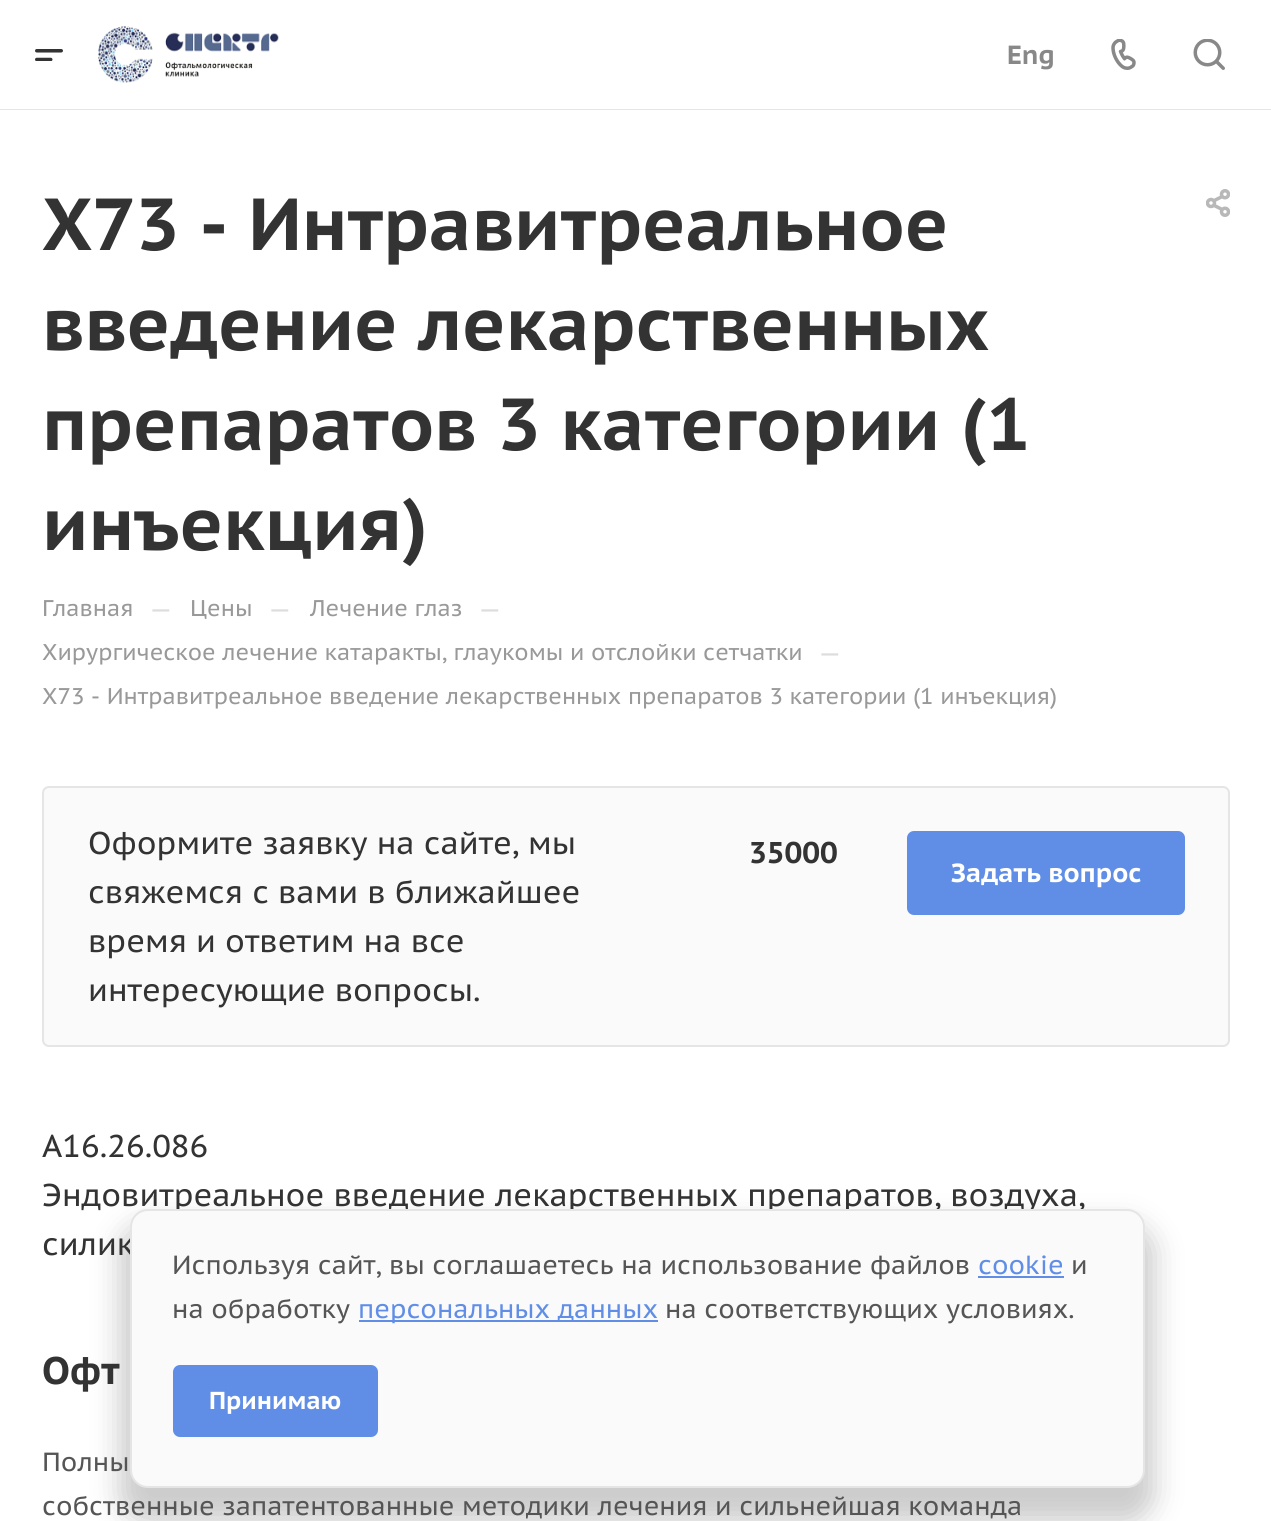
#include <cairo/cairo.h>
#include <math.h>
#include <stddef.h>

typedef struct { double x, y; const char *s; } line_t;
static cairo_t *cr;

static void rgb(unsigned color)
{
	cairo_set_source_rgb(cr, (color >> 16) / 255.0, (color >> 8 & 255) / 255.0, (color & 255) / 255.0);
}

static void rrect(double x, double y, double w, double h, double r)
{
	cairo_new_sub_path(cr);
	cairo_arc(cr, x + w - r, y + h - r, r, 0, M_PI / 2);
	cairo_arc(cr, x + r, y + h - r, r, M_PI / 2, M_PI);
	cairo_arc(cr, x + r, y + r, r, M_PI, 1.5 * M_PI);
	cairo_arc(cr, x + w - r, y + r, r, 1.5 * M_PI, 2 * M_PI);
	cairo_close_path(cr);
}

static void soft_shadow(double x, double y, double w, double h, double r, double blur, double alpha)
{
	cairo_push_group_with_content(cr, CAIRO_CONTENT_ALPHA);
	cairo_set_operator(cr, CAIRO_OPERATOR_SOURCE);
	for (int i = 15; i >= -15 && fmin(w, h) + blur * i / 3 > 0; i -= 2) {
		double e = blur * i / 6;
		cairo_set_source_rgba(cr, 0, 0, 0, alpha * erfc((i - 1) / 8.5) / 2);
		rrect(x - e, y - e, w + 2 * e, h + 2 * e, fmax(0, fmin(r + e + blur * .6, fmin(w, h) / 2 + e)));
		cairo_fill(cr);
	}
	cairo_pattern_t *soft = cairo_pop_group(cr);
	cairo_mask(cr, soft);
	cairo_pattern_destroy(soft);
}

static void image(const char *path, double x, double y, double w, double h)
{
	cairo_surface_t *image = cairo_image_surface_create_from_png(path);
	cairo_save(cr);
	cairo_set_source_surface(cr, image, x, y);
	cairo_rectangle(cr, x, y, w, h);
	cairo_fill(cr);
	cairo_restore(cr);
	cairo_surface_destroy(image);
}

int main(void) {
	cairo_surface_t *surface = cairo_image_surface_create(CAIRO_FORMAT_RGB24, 1271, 1521);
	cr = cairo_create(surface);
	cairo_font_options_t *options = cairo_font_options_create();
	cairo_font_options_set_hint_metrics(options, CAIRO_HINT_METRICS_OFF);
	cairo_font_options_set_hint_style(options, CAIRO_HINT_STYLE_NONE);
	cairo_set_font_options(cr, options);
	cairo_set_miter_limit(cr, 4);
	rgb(0xffffff);
	cairo_paint(cr);
	rgb(0xe5e5e5);
	cairo_rectangle(cr, 0, 109, 1271, 1);
	cairo_fill(cr);
	image("img/1.png", 35, 49, 28, 12);
	image("img/2.png", 98, 26, 181, 57);
	image("img/3.png", 1111, 39, 25, 31);
	image("img/4.png", 1193, 39, 32, 31);
	image("img/5.png", 1206, 189, 24, 28);
	rgb(0xfafafa);
	rrect(43, 787, 1186, 259, 6);
	cairo_fill_preserve(cr);
	rgb(0xe5e5e5);
	cairo_stroke(cr);
	rgb(0x608ee6);
	rrect(908, 832, 276, 82, 6);
	cairo_fill_preserve(cr);
	cairo_stroke(cr);
	rgb(0x000000);
	soft_shadow(119, 1223, 1036, 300, 28, 14, 0.2);
	cairo_select_font_face(cr, "PT Sans Caption", CAIRO_FONT_SLANT_NORMAL, CAIRO_FONT_WEIGHT_BOLD);
	cairo_set_font_size(cr, 26.25);
	rgb(0x888888);
	cairo_move_to(cr, 1007, 64);
	cairo_show_text(cr, "Eng");
	cairo_set_font_size(cr, 73.5);
	rgb(0x333333);
	{
		static const line_t items[] = {
			{42, 250, "Х73 - Интравитреальное"},
			{42, 350, "введение лекарственных"},
			{42, 450, "препаратов 3 категории (1"},
			{42, 550, "инъекция)"},
		};
		for (size_t i = 0; i < sizeof items / sizeof *items; i++) {
			cairo_move_to(cr, items[i].x, items[i].y);
			cairo_show_text(cr, items[i].s);
		}
	}
	cairo_select_font_face(cr, "PT Sans Caption", CAIRO_FONT_SLANT_NORMAL, CAIRO_FONT_WEIGHT_NORMAL);
	cairo_set_font_size(cr, 22.75);
	rgb(0x999999);
	cairo_move_to(cr, 42, 616);
	cairo_show_text(cr, "Главная");
	cairo_set_font_size(cr, 26.25);
	rgb(0xdddddd);
	cairo_move_to(cr, 149, 618);
	cairo_show_text(cr, "—");
	cairo_set_font_size(cr, 22.75);
	rgb(0x999999);
	cairo_move_to(cr, 190, 616);
	cairo_show_text(cr, "Цены");
	cairo_set_font_size(cr, 26.25);
	rgb(0xdddddd);
	cairo_move_to(cr, 268, 618);
	cairo_show_text(cr, "—");
	cairo_set_font_size(cr, 22.75);
	rgb(0x999999);
	cairo_move_to(cr, 310, 616);
	cairo_show_text(cr, "Лечение глаз");
	cairo_set_font_size(cr, 26.25);
	rgb(0xdddddd);
	cairo_move_to(cr, 478, 618);
	cairo_show_text(cr, "—");
	cairo_set_font_size(cr, 22.75);
	rgb(0x999999);
	cairo_move_to(cr, 42, 660);
	cairo_show_text(cr, "Хирургическое лечение катаракты, глаукомы и отслойки сетчатки");
	cairo_set_font_size(cr, 26.25);
	rgb(0xdddddd);
	cairo_move_to(cr, 818, 662);
	cairo_show_text(cr, "—");
	cairo_set_font_size(cr, 22.75);
	rgb(0x999999);
	cairo_move_to(cr, 42, 704);
	cairo_show_text(cr, "Х73 - Интравитреальное введение лекарственных препаратов 3 категории (1 инъекция)");
	cairo_set_font_size(cr, 31.5);
	rgb(0x333333);
	{
		static const line_t items[] = {
			{88, 854, "Оформите заявку на сайте, мы"},
			{88, 903, "свяжемся с вами в ближайшее"},
			{88, 952, "время и ответим на все"},
			{88, 1001, "интересующие вопросы."},
		};
		for (size_t i = 0; i < sizeof items / sizeof *items; i++) {
			cairo_move_to(cr, items[i].x, items[i].y);
			cairo_show_text(cr, items[i].s);
		}
	}
	cairo_select_font_face(cr, "PT Sans Caption", CAIRO_FONT_SLANT_NORMAL, CAIRO_FONT_WEIGHT_BOLD);
	cairo_set_font_size(cr, 30);
	cairo_move_to(cr, 749, 863);
	cairo_show_text(cr, "35000");
	cairo_set_font_size(cr, 26.25);
	rgb(0xffffff);
	cairo_move_to(cr, 951, 882);
	cairo_show_text(cr, "Задать вопрос");
	cairo_select_font_face(cr, "PT Sans Caption", CAIRO_FONT_SLANT_NORMAL, CAIRO_FONT_WEIGHT_NORMAL);
	cairo_set_font_size(cr, 31.5);
	rgb(0x333333);
	{
		static const line_t items[] = {
			{42, 1157, "A16.26.086"},
			{42, 1206, "Эндовитреальное введение лекарственных препаратов, воздуха,"},
			{42, 1255, "силик"},
		};
		for (size_t i = 0; i < sizeof items / sizeof *items; i++) {
			cairo_move_to(cr, items[i].x, items[i].y);
			cairo_show_text(cr, items[i].s);
		}
	}
	cairo_select_font_face(cr, "PT Sans Caption", CAIRO_FONT_SLANT_NORMAL, CAIRO_FONT_WEIGHT_BOLD);
	cairo_set_font_size(cr, 38.5);
	cairo_move_to(cr, 42, 1384);
	cairo_show_text(cr, "Офт");
	cairo_select_font_face(cr, "PT Sans Caption", CAIRO_FONT_SLANT_NORMAL, CAIRO_FONT_WEIGHT_NORMAL);
	cairo_set_font_size(cr, 26.25);
	rgb(0x555555);
	cairo_move_to(cr, 42, 1471);
	cairo_show_text(cr, "Полны");
	cairo_move_to(cr, 42, 1515);
	cairo_show_text(cr, "собственные запатентованные методики лечения и сильнейшая команда");
	rgb(0xfafafa);
	rrect(131, 1210, 1013, 277, 17);
	cairo_fill_preserve(cr);
	rgb(0xe5e5e5);
	cairo_stroke(cr);
	rgb(0x555555);
	cairo_move_to(cr, 172, 1274);
	cairo_show_text(cr, "Используя сайт, вы соглашаетесь на использование файлов");
	rgb(0x608ee6);
	cairo_move_to(cr, 978, 1274);
	cairo_show_text(cr, "cookie");
	cairo_rectangle(cr, 978, 1276, 86, 2);
	cairo_fill(cr);
	rgb(0x555555);
	cairo_move_to(cr, 1071, 1274);
	cairo_show_text(cr, "и");
	cairo_move_to(cr, 172, 1318);
	cairo_show_text(cr, "на обработку");
	rgb(0x608ee6);
	cairo_rectangle(cr, 359, 1320, 299, 2);
	cairo_fill(cr);
	cairo_move_to(cr, 358, 1318);
	cairo_show_text(cr, "персональных данных");
	rgb(0x555555);
	cairo_move_to(cr, 665, 1318);
	cairo_show_text(cr, "на соответствующих условиях.");
	rgb(0x608ee6);
	rrect(174, 1366, 203, 70, 6);
	cairo_fill_preserve(cr);
	cairo_stroke(cr);
	cairo_select_font_face(cr, "PT Sans Caption", CAIRO_FONT_SLANT_NORMAL, CAIRO_FONT_WEIGHT_BOLD);
	cairo_set_font_size(cr, 24.5);
	rgb(0xffffff);
	cairo_move_to(cr, 209, 1409);
	cairo_show_text(cr, "Принимаю");
	cairo_surface_write_to_png(surface, "page.png");
	cairo_font_options_destroy(options);
	cairo_destroy(cr);
	cairo_surface_destroy(surface);
	return 0;
}
